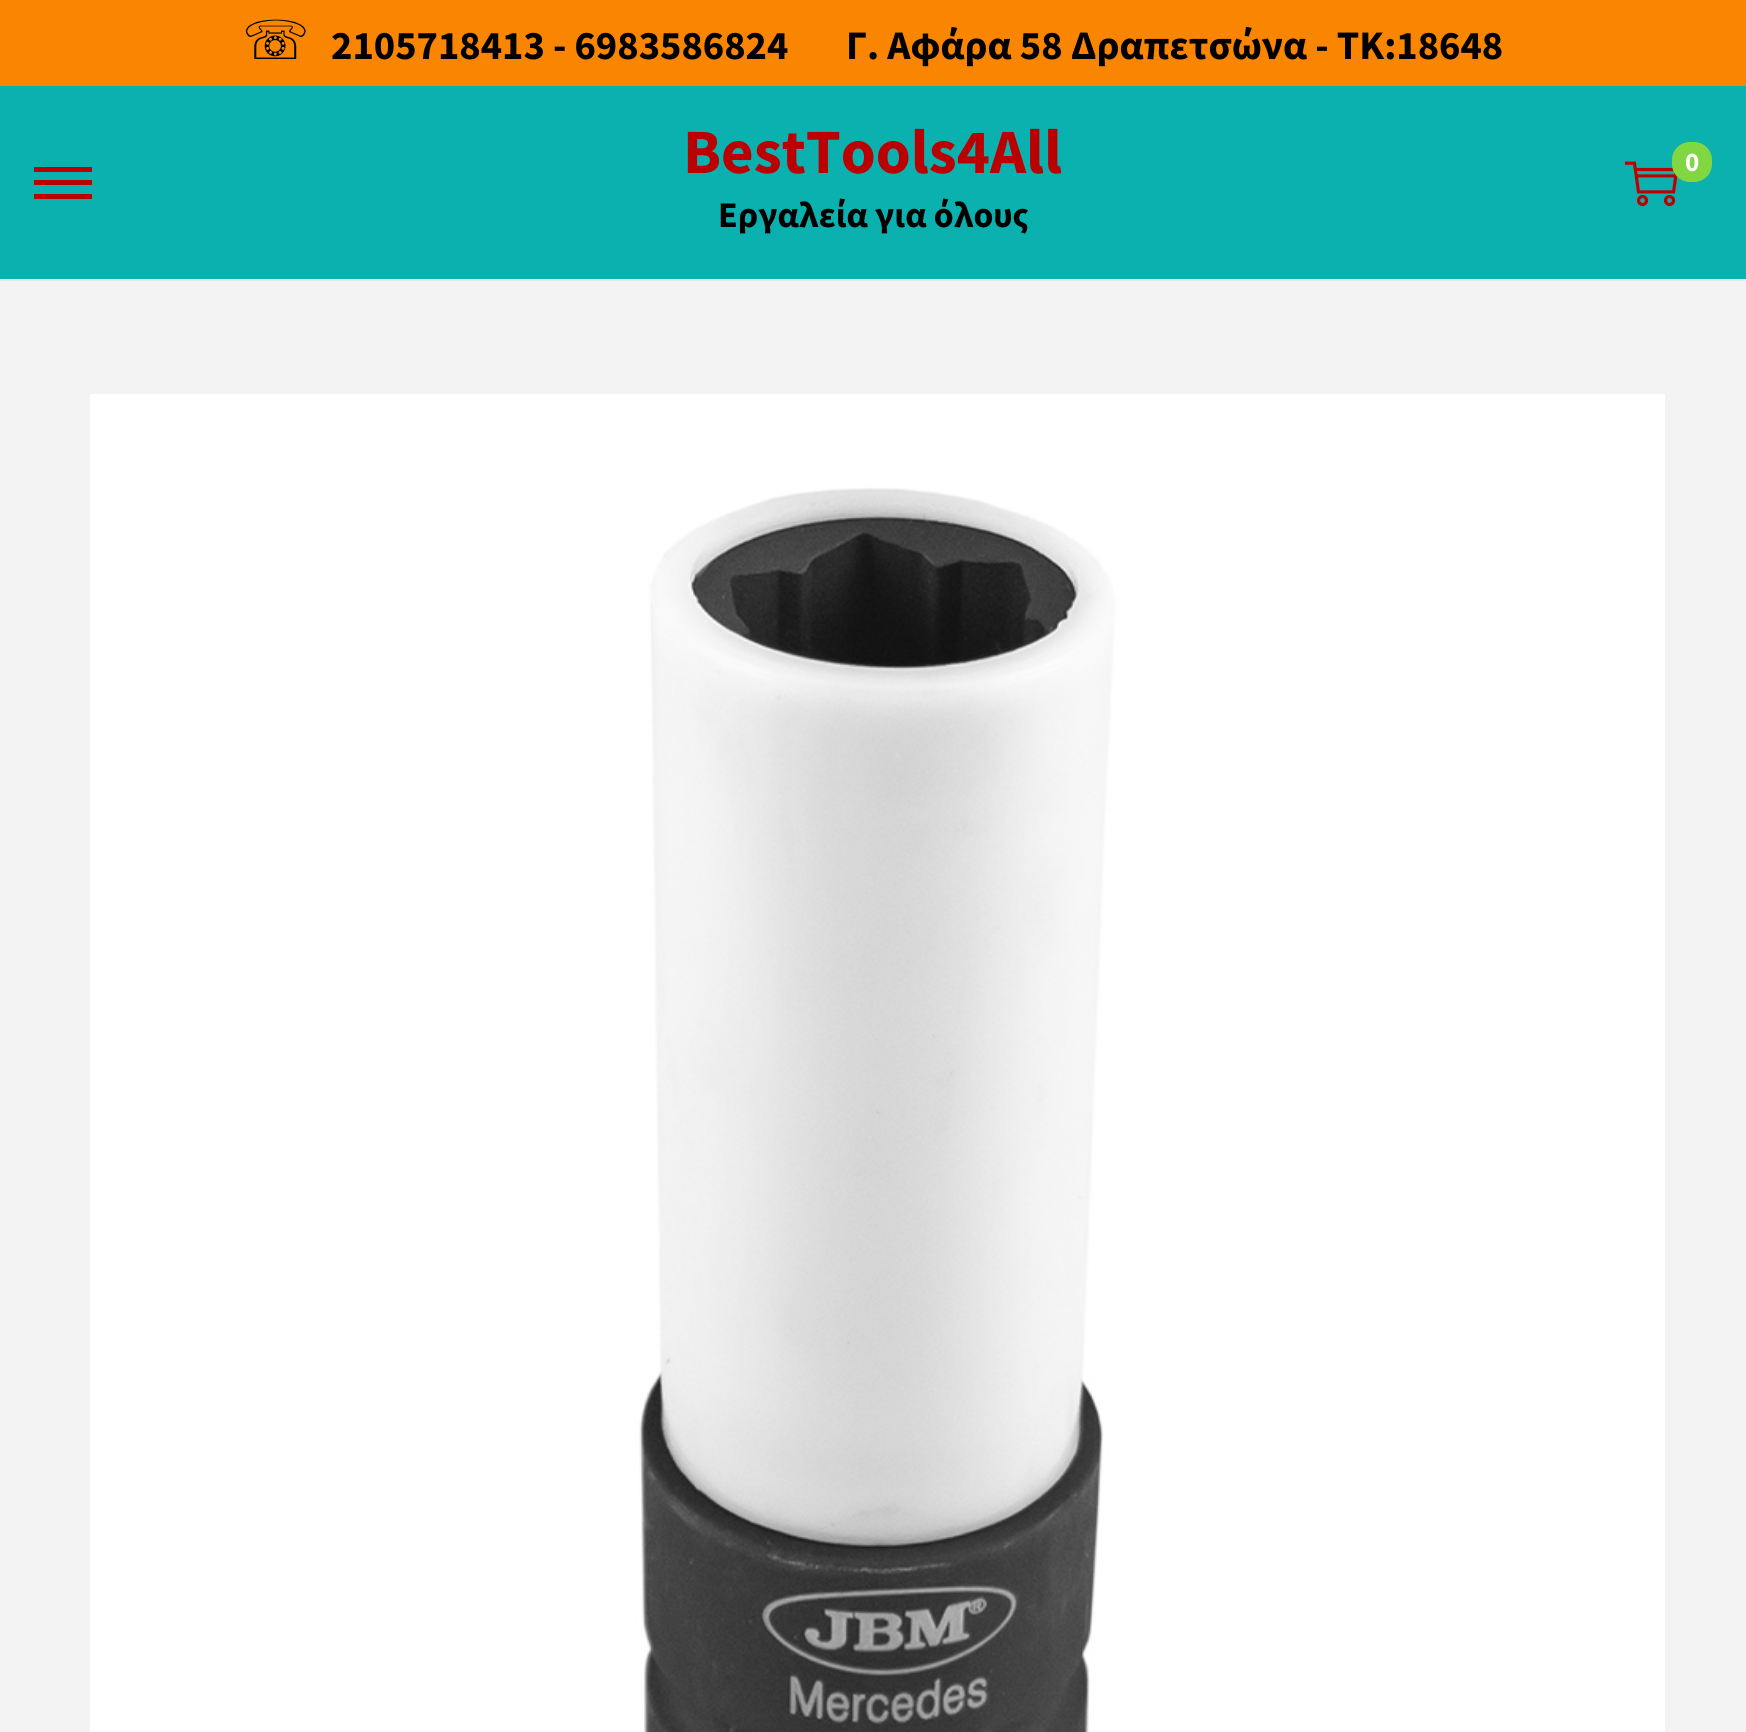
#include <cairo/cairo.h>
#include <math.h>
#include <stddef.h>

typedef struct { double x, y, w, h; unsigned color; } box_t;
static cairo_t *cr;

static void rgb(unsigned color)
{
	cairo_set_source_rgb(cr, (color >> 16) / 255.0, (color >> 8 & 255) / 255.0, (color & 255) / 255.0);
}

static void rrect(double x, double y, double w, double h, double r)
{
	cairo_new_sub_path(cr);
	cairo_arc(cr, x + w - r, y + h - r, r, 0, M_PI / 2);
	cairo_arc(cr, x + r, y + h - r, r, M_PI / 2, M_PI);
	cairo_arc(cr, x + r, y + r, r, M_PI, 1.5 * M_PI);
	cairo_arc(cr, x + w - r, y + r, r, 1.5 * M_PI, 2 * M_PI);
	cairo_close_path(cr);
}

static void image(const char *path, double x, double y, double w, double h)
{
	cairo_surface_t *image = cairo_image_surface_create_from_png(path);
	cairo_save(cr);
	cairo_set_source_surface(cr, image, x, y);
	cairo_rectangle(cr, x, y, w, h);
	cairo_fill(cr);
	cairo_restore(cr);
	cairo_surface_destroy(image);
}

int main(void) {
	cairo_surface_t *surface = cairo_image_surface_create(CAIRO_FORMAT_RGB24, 1746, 1732);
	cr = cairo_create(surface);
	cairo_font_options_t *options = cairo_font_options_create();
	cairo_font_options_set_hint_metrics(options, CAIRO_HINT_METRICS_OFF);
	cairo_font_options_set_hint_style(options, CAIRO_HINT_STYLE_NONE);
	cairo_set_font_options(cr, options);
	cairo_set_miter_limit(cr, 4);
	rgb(0xf98500);
	cairo_paint(cr);
	rgb(0x0bb1af);
	cairo_rectangle(cr, 0, 86, 1746, 193);
	cairo_fill(cr);
	rgb(0xeaeaea);
	cairo_rectangle(cr, 0, 279, 1746, 2);
	cairo_fill(cr);
	image("img/1.png", 1625, 161, 53, 46);
	rgb(0x81d742);
	rrect(1672, 142, 40, 40, 18);
	cairo_fill(cr);
	{
		static const box_t items[] = {
			{34, 180, 58, 5, 0xba0000},
			{34, 167, 58, 5, 0xba0000},
			{34, 194, 58, 5, 0xba0000},
			{0, 281, 1746, 1451, 0xf3f3f3},
		};
		for (size_t i = 0; i < sizeof items / sizeof *items; i++) {
			rgb(items[i].color);
			cairo_rectangle(cr, items[i].x, items[i].y, items[i].w, items[i].h);
			cairo_fill(cr);
		}
	}
	image("img/2.png", 90, 394, 1575, 1338);
	cairo_select_font_face(cr, "DejaVu Sans", CAIRO_FONT_SLANT_NORMAL, CAIRO_FONT_WEIGHT_NORMAL);
	cairo_set_font_size(cr, 54);
	rgb(0x000000);
	cairo_move_to(cr, 242, 59);
	cairo_show_text(cr, "☏");
	cairo_select_font_face(cr, "Source Sans Pro", CAIRO_FONT_SLANT_NORMAL, CAIRO_FONT_WEIGHT_BOLD);
	cairo_set_font_size(cr, 40.5);
	cairo_move_to(cr, 331, 59);
	cairo_show_text(cr, "2105718413 - 6983586824");
	cairo_move_to(cr, 846, 59);
	cairo_show_text(cr, "Γ. Αφάρα 58 Δραπετσώνα - ΤΚ:18648");
	cairo_set_font_size(cr, 63);
	rgb(0xba0000);
	cairo_move_to(cr, 683, 173);
	cairo_show_text(cr, "BestTools4All");
	cairo_set_font_size(cr, 36);
	rgb(0x000000);
	cairo_move_to(cr, 718, 227);
	cairo_show_text(cr, "Εργαλεία για όλους");
	cairo_set_font_size(cr, 27);
	rgb(0xffffff);
	cairo_move_to(cr, 1685, 171);
	cairo_show_text(cr, "0");
	cairo_surface_write_to_png(surface, "page.png");
	cairo_font_options_destroy(options);
	cairo_destroy(cr);
	cairo_surface_destroy(surface);
	return 0;
}
